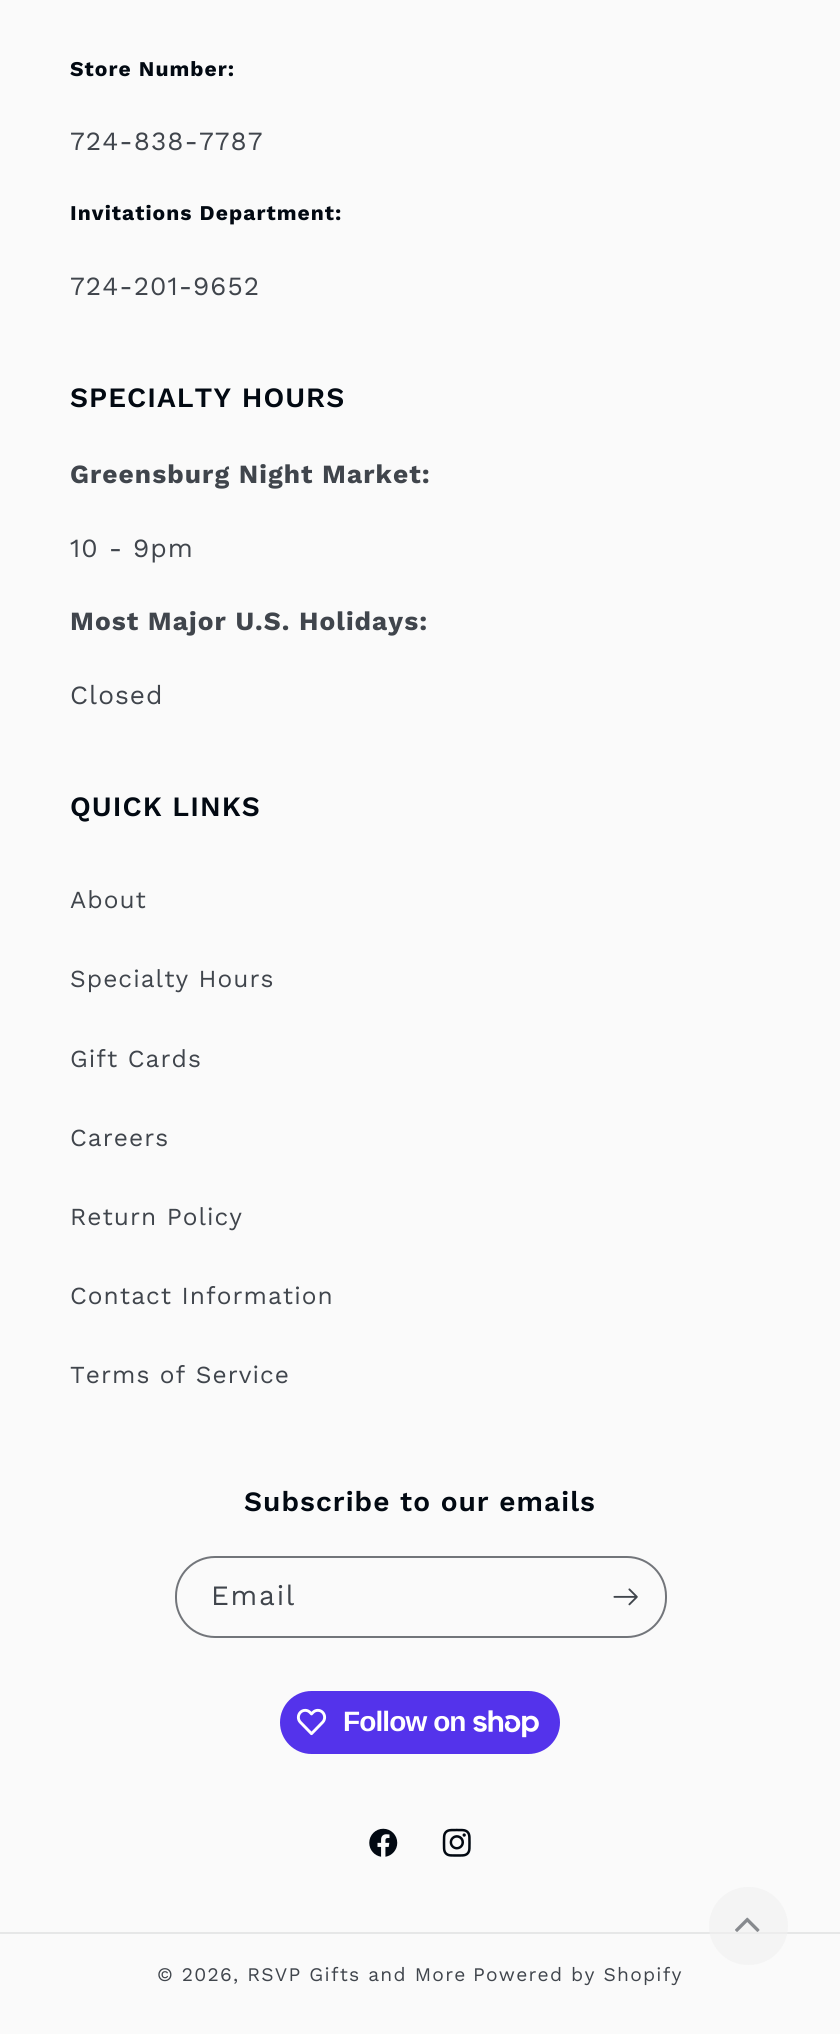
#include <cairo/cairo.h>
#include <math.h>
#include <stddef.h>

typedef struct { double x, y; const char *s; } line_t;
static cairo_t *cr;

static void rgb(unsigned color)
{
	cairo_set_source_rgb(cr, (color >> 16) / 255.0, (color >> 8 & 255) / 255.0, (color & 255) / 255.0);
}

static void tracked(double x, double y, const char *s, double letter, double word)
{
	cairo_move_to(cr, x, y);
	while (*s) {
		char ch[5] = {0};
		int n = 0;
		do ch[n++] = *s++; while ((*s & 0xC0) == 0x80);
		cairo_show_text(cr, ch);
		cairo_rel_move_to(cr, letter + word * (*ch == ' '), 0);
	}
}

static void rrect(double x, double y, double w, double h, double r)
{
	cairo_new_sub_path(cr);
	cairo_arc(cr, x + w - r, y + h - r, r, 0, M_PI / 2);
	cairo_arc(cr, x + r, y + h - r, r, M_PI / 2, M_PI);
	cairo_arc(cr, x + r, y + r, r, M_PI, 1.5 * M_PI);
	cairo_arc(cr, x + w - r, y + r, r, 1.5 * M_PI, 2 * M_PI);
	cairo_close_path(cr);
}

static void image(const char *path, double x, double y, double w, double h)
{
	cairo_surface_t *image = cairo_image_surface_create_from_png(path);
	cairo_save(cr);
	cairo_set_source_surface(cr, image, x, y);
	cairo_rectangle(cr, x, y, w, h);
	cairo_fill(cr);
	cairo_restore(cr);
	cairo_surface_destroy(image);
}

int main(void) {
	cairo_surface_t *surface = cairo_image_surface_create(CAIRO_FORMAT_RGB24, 840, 2034);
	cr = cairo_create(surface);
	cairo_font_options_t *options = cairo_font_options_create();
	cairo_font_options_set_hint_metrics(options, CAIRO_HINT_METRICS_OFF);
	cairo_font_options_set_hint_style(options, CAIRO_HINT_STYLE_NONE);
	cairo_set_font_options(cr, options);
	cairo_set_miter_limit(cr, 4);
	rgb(0xfafafa);
	cairo_paint(cr);
	rrect(176, 1557, 490, 80, 39);
	rgb(0x72757a);
	cairo_stroke(cr);
	image("img/1.png", 613, 1588, 25, 18);
	rgb(0x5433eb);
	rrect(280, 1691, 280, 63, 31.5);
	cairo_fill(cr);
	image("img/2.png", 296, 1708, 31, 28);
	image("img/3.png", 473, 1710, 66, 28);
	image("img/4.png", 369, 1828, 29, 29);
	image("img/5.png", 442, 1828, 29, 29);
	rgb(0xe6e7e7);
	cairo_rectangle(cr, 0, 1932, 840, 2);
	cairo_fill(cr);
	cairo_set_source_rgba(cr, 0.941, 0.941, 0.941, 0.6);
	rrect(709, 1887, 79, 78, 39);
	cairo_fill(cr);
	image("img/6.png", 735, 1917, 25, 15);
	cairo_select_font_face(cr, "Work Sans", CAIRO_FONT_SLANT_NORMAL, CAIRO_FONT_WEIGHT_BOLD);
	cairo_set_font_size(cr, 21);
	rgb(0x020912);
	tracked(70, 76, "Store Number:", 1.05, 0);
	cairo_select_font_face(cr, "Work Sans", CAIRO_FONT_SLANT_NORMAL, CAIRO_FONT_WEIGHT_NORMAL);
	cairo_set_font_size(cr, 26.25);
	rgb(0x40454c);
	tracked(70, 150, "724-838-7787", 1.05, 0);
	cairo_select_font_face(cr, "Work Sans", CAIRO_FONT_SLANT_NORMAL, CAIRO_FONT_WEIGHT_BOLD);
	cairo_set_font_size(cr, 21);
	rgb(0x020912);
	tracked(70, 220, "Invitations Department:", 1.05, 0);
	cairo_select_font_face(cr, "Work Sans", CAIRO_FONT_SLANT_NORMAL, CAIRO_FONT_WEIGHT_NORMAL);
	cairo_set_font_size(cr, 26.25);
	rgb(0x40454c);
	tracked(70, 295, "724-201-9652", 1.05, 0);
	cairo_select_font_face(cr, "Work Sans SemiBold", CAIRO_FONT_SLANT_NORMAL, CAIRO_FONT_WEIGHT_NORMAL);
	cairo_set_font_size(cr, 28);
	rgb(0x020912);
	tracked(70, 407, "SPECIALTY HOURS", 1.05, 0);
	cairo_select_font_face(cr, "Work Sans", CAIRO_FONT_SLANT_NORMAL, CAIRO_FONT_WEIGHT_BOLD);
	cairo_set_font_size(cr, 26.25);
	rgb(0x40454c);
	tracked(70, 483, "Greensburg Night Market:", 1.05, 0);
	cairo_select_font_face(cr, "Work Sans", CAIRO_FONT_SLANT_NORMAL, CAIRO_FONT_WEIGHT_NORMAL);
	tracked(70, 557, "10 - 9pm", 1.05, 0);
	cairo_select_font_face(cr, "Work Sans", CAIRO_FONT_SLANT_NORMAL, CAIRO_FONT_WEIGHT_BOLD);
	tracked(70, 630, "Most Major U.S. Holidays:", 1.05, 0);
	cairo_select_font_face(cr, "Work Sans", CAIRO_FONT_SLANT_NORMAL, CAIRO_FONT_WEIGHT_NORMAL);
	tracked(70, 704, "Closed", 1.05, 0);
	cairo_select_font_face(cr, "Work Sans SemiBold", CAIRO_FONT_SLANT_NORMAL, CAIRO_FONT_WEIGHT_NORMAL);
	cairo_set_font_size(cr, 28);
	rgb(0x020912);
	tracked(70, 816, "QUICK LINKS", 1.05, 0);
	cairo_select_font_face(cr, "Work Sans", CAIRO_FONT_SLANT_NORMAL, CAIRO_FONT_WEIGHT_NORMAL);
	cairo_set_font_size(cr, 24.5);
	rgb(0x40454c);
	{
		static const line_t items[] = {
			{70, 908, "About"},
			{70, 987, "Specialty Hours"},
			{70, 1067, "Gift Cards"},
			{70, 1146, "Careers"},
			{70, 1225, "Return Policy"},
			{70, 1304, "Contact Information"},
			{70, 1383, "Terms of Service"},
		};
		for (size_t i = 0; i < sizeof items / sizeof *items; i++) {
			tracked(items[i].x, items[i].y, items[i].s, 1.05, 0);
		}
	}
	cairo_select_font_face(cr, "Work Sans SemiBold", CAIRO_FONT_SLANT_NORMAL, CAIRO_FONT_WEIGHT_NORMAL);
	cairo_set_font_size(cr, 28);
	rgb(0x020912);
	tracked(244, 1511, "Subscribe to our emails", 1.05, 0);
	cairo_select_font_face(cr, "Work Sans", CAIRO_FONT_SLANT_NORMAL, CAIRO_FONT_WEIGHT_NORMAL);
	rgb(0x40454c);
	tracked(211, 1605, "Email", 1.75, 0);
	cairo_select_font_face(cr, "Liberation Sans", CAIRO_FONT_SLANT_NORMAL, CAIRO_FONT_WEIGHT_BOLD);
	rgb(0xffffff);
	tracked(343, 1731, "Follow on", -0.9, 0);
	cairo_select_font_face(cr, "Work Sans", CAIRO_FONT_SLANT_NORMAL, CAIRO_FONT_WEIGHT_NORMAL);
	cairo_set_font_size(cr, 19.25);
	rgb(0x40454c);
	tracked(157, 1981, "© 2026, RSVP Gifts and More", 1.25, 0);
	tracked(473, 1981, "Powered by Shopify", 1.25, 0);
	cairo_surface_write_to_png(surface, "page.png");
	cairo_font_options_destroy(options);
	cairo_destroy(cr);
	cairo_surface_destroy(surface);
	return 0;
}
